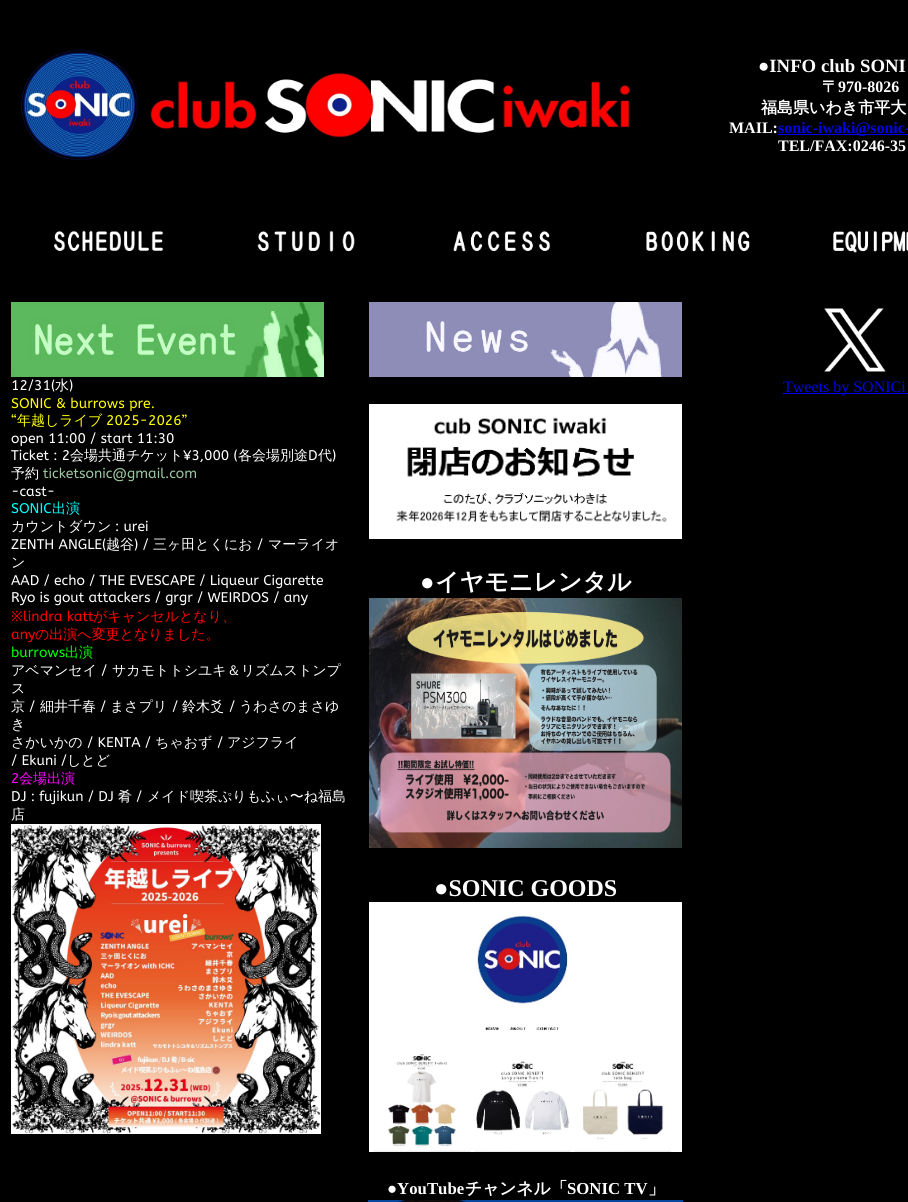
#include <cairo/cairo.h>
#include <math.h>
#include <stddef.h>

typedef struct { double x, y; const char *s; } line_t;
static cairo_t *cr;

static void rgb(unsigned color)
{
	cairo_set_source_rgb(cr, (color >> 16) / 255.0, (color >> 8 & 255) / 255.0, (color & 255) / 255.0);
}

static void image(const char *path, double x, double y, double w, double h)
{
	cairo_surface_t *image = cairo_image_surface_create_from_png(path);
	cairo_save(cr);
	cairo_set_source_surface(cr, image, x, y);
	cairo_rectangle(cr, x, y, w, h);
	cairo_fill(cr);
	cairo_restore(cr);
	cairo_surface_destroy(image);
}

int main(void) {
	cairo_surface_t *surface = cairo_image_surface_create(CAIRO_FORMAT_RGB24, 908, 1202);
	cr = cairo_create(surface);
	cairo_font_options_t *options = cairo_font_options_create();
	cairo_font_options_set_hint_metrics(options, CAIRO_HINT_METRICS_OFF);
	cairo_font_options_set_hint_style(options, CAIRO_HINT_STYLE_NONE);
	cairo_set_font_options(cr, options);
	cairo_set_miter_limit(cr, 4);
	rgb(0x000000);
	cairo_paint(cr);
	image("img/1.png", 20, 50, 611, 111);
	rgb(0x0000ee);
	cairo_rectangle(cr, 778, 134, 130, 1);
	cairo_fill(cr);
	image("img/2.png", 53, 230, 111, 22);
	image("img/3.png", 257, 230, 98, 22);
	image("img/4.png", 453, 231, 98, 21);
	image("img/5.png", 646, 230, 104, 22);
	image("img/6.png", 833, 230, 75, 23);
	image("img/7.png", 11, 302, 313, 75);
	image("img/8.png", 11, 824, 310, 310);
	image("img/9.png", 824, 308, 62, 64);
	cairo_rectangle(cr, 783, 393, 125, 1);
	cairo_fill(cr);
	image("img/10.png", 369, 302, 313, 75);
	image("img/11.png", 369, 404, 313, 135);
	image("img/12.png", 369, 598, 313, 250);
	image("img/13.png", 369, 902, 313, 250);
	image("img/14.png", 368, 1200, 315, 2);
	cairo_select_font_face(cr, "Liberation Serif", CAIRO_FONT_SLANT_NORMAL, CAIRO_FONT_WEIGHT_BOLD);
	cairo_set_font_size(cr, 18.75);
	rgb(0xffffff);
	cairo_move_to(cr, 758, 72);
	cairo_show_text(cr, "●INFO club SONI");
	cairo_select_font_face(cr, "WenQuanYi Zen Hei", CAIRO_FONT_SLANT_NORMAL, CAIRO_FONT_WEIGHT_BOLD);
	cairo_set_font_size(cr, 16);
	cairo_move_to(cr, 822, 92);
	cairo_show_text(cr, "〒");
	cairo_select_font_face(cr, "Liberation Serif", CAIRO_FONT_SLANT_NORMAL, CAIRO_FONT_WEIGHT_BOLD);
	cairo_move_to(cr, 838, 92);
	cairo_show_text(cr, "970-8026");
	cairo_select_font_face(cr, "WenQuanYi Zen Hei", CAIRO_FONT_SLANT_NORMAL, CAIRO_FONT_WEIGHT_BOLD);
	cairo_move_to(cr, 761, 113);
	cairo_show_text(cr, "福島県いわき市平大");
	cairo_select_font_face(cr, "Liberation Serif", CAIRO_FONT_SLANT_NORMAL, CAIRO_FONT_WEIGHT_BOLD);
	cairo_move_to(cr, 729, 133);
	cairo_show_text(cr, "MAIL:");
	rgb(0x0000ee);
	cairo_move_to(cr, 778, 133);
	cairo_show_text(cr, "sonic-iwaki@sonic-");
	rgb(0xffffff);
	cairo_move_to(cr, 778, 151);
	cairo_show_text(cr, "TEL/FAX:0246-35");
	cairo_select_font_face(cr, "ABeeZee", CAIRO_FONT_SLANT_NORMAL, CAIRO_FONT_WEIGHT_NORMAL);
	cairo_set_font_size(cr, 14);
	cairo_move_to(cr, 11, 390);
	cairo_show_text(cr, "12/31(");
	cairo_select_font_face(cr, "WenQuanYi Zen Hei Medium", CAIRO_FONT_SLANT_NORMAL, CAIRO_FONT_WEIGHT_NORMAL);
	cairo_move_to(cr, 55, 390);
	cairo_show_text(cr, "水");
	cairo_select_font_face(cr, "ABeeZee", CAIRO_FONT_SLANT_NORMAL, CAIRO_FONT_WEIGHT_NORMAL);
	cairo_move_to(cr, 69, 390);
	cairo_show_text(cr, ")");
	rgb(0xffff00);
	cairo_move_to(cr, 11, 408);
	cairo_show_text(cr, "SONIC & burrows pre.");
	cairo_move_to(cr, 11, 425);
	cairo_show_text(cr, "“");
	cairo_select_font_face(cr, "WenQuanYi Zen Hei Medium", CAIRO_FONT_SLANT_NORMAL, CAIRO_FONT_WEIGHT_NORMAL);
	cairo_move_to(cr, 17, 425);
	cairo_show_text(cr, "年越しライブ");
	cairo_select_font_face(cr, "ABeeZee", CAIRO_FONT_SLANT_NORMAL, CAIRO_FONT_WEIGHT_NORMAL);
	cairo_move_to(cr, 106, 425);
	cairo_show_text(cr, "2025-2026”");
	rgb(0xffffff);
	cairo_move_to(cr, 11, 443);
	cairo_show_text(cr, "open 11:00 / start 11:30");
	cairo_move_to(cr, 11, 460);
	cairo_show_text(cr, "Ticket : 2");
	cairo_select_font_face(cr, "WenQuanYi Zen Hei Medium", CAIRO_FONT_SLANT_NORMAL, CAIRO_FONT_WEIGHT_NORMAL);
	cairo_move_to(cr, 70, 460);
	cairo_show_text(cr, "会場共通チケット");
	cairo_select_font_face(cr, "ABeeZee", CAIRO_FONT_SLANT_NORMAL, CAIRO_FONT_WEIGHT_NORMAL);
	cairo_move_to(cr, 183, 460);
	cairo_show_text(cr, "¥3,000 (");
	cairo_select_font_face(cr, "WenQuanYi Zen Hei Medium", CAIRO_FONT_SLANT_NORMAL, CAIRO_FONT_WEIGHT_NORMAL);
	cairo_move_to(cr, 238, 460);
	cairo_show_text(cr, "各会場別途");
	cairo_select_font_face(cr, "ABeeZee", CAIRO_FONT_SLANT_NORMAL, CAIRO_FONT_WEIGHT_NORMAL);
	cairo_move_to(cr, 308, 460);
	cairo_show_text(cr, "D");
	cairo_select_font_face(cr, "WenQuanYi Zen Hei Medium", CAIRO_FONT_SLANT_NORMAL, CAIRO_FONT_WEIGHT_NORMAL);
	cairo_move_to(cr, 318, 460);
	cairo_show_text(cr, "代");
	cairo_select_font_face(cr, "ABeeZee", CAIRO_FONT_SLANT_NORMAL, CAIRO_FONT_WEIGHT_NORMAL);
	cairo_move_to(cr, 332, 460);
	cairo_show_text(cr, ")");
	cairo_select_font_face(cr, "WenQuanYi Zen Hei Medium", CAIRO_FONT_SLANT_NORMAL, CAIRO_FONT_WEIGHT_NORMAL);
	cairo_move_to(cr, 11, 478);
	cairo_show_text(cr, "予約");
	cairo_select_font_face(cr, "ABeeZee", CAIRO_FONT_SLANT_NORMAL, CAIRO_FONT_WEIGHT_NORMAL);
	rgb(0x9cc7a1);
	cairo_move_to(cr, 43, 478);
	cairo_show_text(cr, "ticketsonic@gmail.com");
	rgb(0xffffff);
	cairo_move_to(cr, 11, 496);
	cairo_show_text(cr, "-cast-");
	rgb(0x00ffff);
	cairo_move_to(cr, 11, 513);
	cairo_show_text(cr, "SONIC");
	cairo_select_font_face(cr, "WenQuanYi Zen Hei Medium", CAIRO_FONT_SLANT_NORMAL, CAIRO_FONT_WEIGHT_NORMAL);
	cairo_move_to(cr, 52, 513);
	cairo_show_text(cr, "出演");
	rgb(0xffffff);
	cairo_move_to(cr, 11, 531);
	cairo_show_text(cr, "カウントダウン");
	cairo_select_font_face(cr, "ABeeZee", CAIRO_FONT_SLANT_NORMAL, CAIRO_FONT_WEIGHT_NORMAL);
	cairo_move_to(cr, 115, 531);
	cairo_show_text(cr, ": urei");
	cairo_move_to(cr, 11, 549);
	cairo_show_text(cr, "ZENTH ANGLE(");
	cairo_select_font_face(cr, "WenQuanYi Zen Hei Medium", CAIRO_FONT_SLANT_NORMAL, CAIRO_FONT_WEIGHT_NORMAL);
	cairo_move_to(cr, 106, 549);
	cairo_show_text(cr, "越谷");
	cairo_select_font_face(cr, "ABeeZee", CAIRO_FONT_SLANT_NORMAL, CAIRO_FONT_WEIGHT_NORMAL);
	cairo_move_to(cr, 134, 549);
	cairo_show_text(cr, ") /");
	cairo_select_font_face(cr, "WenQuanYi Zen Hei Medium", CAIRO_FONT_SLANT_NORMAL, CAIRO_FONT_WEIGHT_NORMAL);
	cairo_move_to(cr, 153, 549);
	cairo_show_text(cr, "三ヶ田とくにお");
	cairo_select_font_face(cr, "ABeeZee", CAIRO_FONT_SLANT_NORMAL, CAIRO_FONT_WEIGHT_NORMAL);
	cairo_move_to(cr, 257, 549);
	cairo_show_text(cr, "/");
	cairo_select_font_face(cr, "WenQuanYi Zen Hei Medium", CAIRO_FONT_SLANT_NORMAL, CAIRO_FONT_WEIGHT_NORMAL);
	cairo_move_to(cr, 268, 549);
	cairo_show_text(cr, "マーライオ");
	cairo_move_to(cr, 11, 567);
	cairo_show_text(cr, "ン");
	cairo_select_font_face(cr, "ABeeZee", CAIRO_FONT_SLANT_NORMAL, CAIRO_FONT_WEIGHT_NORMAL);
	cairo_move_to(cr, 11, 585);
	cairo_show_text(cr, "AAD / echo / THE EVESCAPE / Liqueur Cigarette");
	cairo_move_to(cr, 11, 602);
	cairo_show_text(cr, "Ryo is gout attackers / grgr / WEIRDOS / any");
	cairo_select_font_face(cr, "Noto Sans", CAIRO_FONT_SLANT_NORMAL, CAIRO_FONT_WEIGHT_NORMAL);
	rgb(0xff0000);
	cairo_move_to(cr, 11, 621);
	cairo_show_text(cr, "※");
	cairo_select_font_face(cr, "ABeeZee", CAIRO_FONT_SLANT_NORMAL, CAIRO_FONT_WEIGHT_NORMAL);
	cairo_move_to(cr, 23, 621);
	cairo_show_text(cr, "lindra katt");
	cairo_select_font_face(cr, "WenQuanYi Zen Hei Medium", CAIRO_FONT_SLANT_NORMAL, CAIRO_FONT_WEIGHT_NORMAL);
	cairo_move_to(cr, 93, 621);
	cairo_show_text(cr, "がキャンセルとなり、");
	cairo_select_font_face(cr, "ABeeZee", CAIRO_FONT_SLANT_NORMAL, CAIRO_FONT_WEIGHT_NORMAL);
	cairo_move_to(cr, 11, 639);
	cairo_show_text(cr, "any");
	cairo_select_font_face(cr, "WenQuanYi Zen Hei Medium", CAIRO_FONT_SLANT_NORMAL, CAIRO_FONT_WEIGHT_NORMAL);
	cairo_move_to(cr, 35, 639);
	cairo_show_text(cr, "の出演へ変更となりました。");
	cairo_select_font_face(cr, "ABeeZee", CAIRO_FONT_SLANT_NORMAL, CAIRO_FONT_WEIGHT_NORMAL);
	rgb(0x00ff00);
	cairo_move_to(cr, 11, 657);
	cairo_show_text(cr, "burrows");
	cairo_select_font_face(cr, "WenQuanYi Zen Hei Medium", CAIRO_FONT_SLANT_NORMAL, CAIRO_FONT_WEIGHT_NORMAL);
	cairo_move_to(cr, 65, 657);
	cairo_show_text(cr, "出演");
	rgb(0xffffff);
	cairo_move_to(cr, 11, 675);
	cairo_show_text(cr, "アベマンセイ");
	cairo_select_font_face(cr, "ABeeZee", CAIRO_FONT_SLANT_NORMAL, CAIRO_FONT_WEIGHT_NORMAL);
	cairo_move_to(cr, 101, 675);
	cairo_show_text(cr, "/");
	cairo_select_font_face(cr, "WenQuanYi Zen Hei Medium", CAIRO_FONT_SLANT_NORMAL, CAIRO_FONT_WEIGHT_NORMAL);
	{
		static const line_t items[] = {
			{112, 675, "サカモトトシユキ＆リズムストンプ"},
			{11, 693, "ス"},
			{11, 711, "京"},
		};
		for (size_t i = 0; i < sizeof items / sizeof *items; i++) {
			cairo_move_to(cr, items[i].x, items[i].y);
			cairo_show_text(cr, items[i].s);
		}
	}
	cairo_select_font_face(cr, "ABeeZee", CAIRO_FONT_SLANT_NORMAL, CAIRO_FONT_WEIGHT_NORMAL);
	cairo_move_to(cr, 29, 711);
	cairo_show_text(cr, "/");
	cairo_select_font_face(cr, "WenQuanYi Zen Hei Medium", CAIRO_FONT_SLANT_NORMAL, CAIRO_FONT_WEIGHT_NORMAL);
	cairo_move_to(cr, 40, 711);
	cairo_show_text(cr, "細井千春");
	cairo_select_font_face(cr, "ABeeZee", CAIRO_FONT_SLANT_NORMAL, CAIRO_FONT_WEIGHT_NORMAL);
	cairo_move_to(cr, 100, 711);
	cairo_show_text(cr, "/");
	cairo_select_font_face(cr, "WenQuanYi Zen Hei Medium", CAIRO_FONT_SLANT_NORMAL, CAIRO_FONT_WEIGHT_NORMAL);
	cairo_move_to(cr, 110, 711);
	cairo_show_text(cr, "まさプリ");
	cairo_select_font_face(cr, "ABeeZee", CAIRO_FONT_SLANT_NORMAL, CAIRO_FONT_WEIGHT_NORMAL);
	cairo_move_to(cr, 172, 711);
	cairo_show_text(cr, "/");
	cairo_select_font_face(cr, "WenQuanYi Zen Hei Medium", CAIRO_FONT_SLANT_NORMAL, CAIRO_FONT_WEIGHT_NORMAL);
	cairo_move_to(cr, 182, 711);
	cairo_show_text(cr, "鈴木爻");
	cairo_select_font_face(cr, "ABeeZee", CAIRO_FONT_SLANT_NORMAL, CAIRO_FONT_WEIGHT_NORMAL);
	cairo_move_to(cr, 229, 711);
	cairo_show_text(cr, "/");
	cairo_select_font_face(cr, "WenQuanYi Zen Hei Medium", CAIRO_FONT_SLANT_NORMAL, CAIRO_FONT_WEIGHT_NORMAL);
	{
		static const line_t items[] = {
			{239, 711, "うわさのまさゆ"},
			{11, 729, "き"},
			{11, 747, "さかいかの"},
		};
		for (size_t i = 0; i < sizeof items / sizeof *items; i++) {
			cairo_move_to(cr, items[i].x, items[i].y);
			cairo_show_text(cr, items[i].s);
		}
	}
	cairo_select_font_face(cr, "ABeeZee", CAIRO_FONT_SLANT_NORMAL, CAIRO_FONT_WEIGHT_NORMAL);
	cairo_move_to(cr, 87, 747);
	cairo_show_text(cr, "/ KENTA /");
	cairo_select_font_face(cr, "WenQuanYi Zen Hei Medium", CAIRO_FONT_SLANT_NORMAL, CAIRO_FONT_WEIGHT_NORMAL);
	cairo_move_to(cr, 155, 747);
	cairo_show_text(cr, "ちゃおず");
	cairo_select_font_face(cr, "ABeeZee", CAIRO_FONT_SLANT_NORMAL, CAIRO_FONT_WEIGHT_NORMAL);
	cairo_move_to(cr, 217, 747);
	cairo_show_text(cr, "/");
	cairo_select_font_face(cr, "WenQuanYi Zen Hei Medium", CAIRO_FONT_SLANT_NORMAL, CAIRO_FONT_WEIGHT_NORMAL);
	cairo_move_to(cr, 227, 747);
	cairo_show_text(cr, "アジフライ");
	cairo_select_font_face(cr, "ABeeZee", CAIRO_FONT_SLANT_NORMAL, CAIRO_FONT_WEIGHT_NORMAL);
	cairo_move_to(cr, 11, 765);
	cairo_show_text(cr, "/ Ekuni /");
	cairo_select_font_face(cr, "WenQuanYi Zen Hei Medium", CAIRO_FONT_SLANT_NORMAL, CAIRO_FONT_WEIGHT_NORMAL);
	cairo_move_to(cr, 67, 765);
	cairo_show_text(cr, "しとど");
	cairo_select_font_face(cr, "ABeeZee", CAIRO_FONT_SLANT_NORMAL, CAIRO_FONT_WEIGHT_NORMAL);
	rgb(0xff00ff);
	cairo_move_to(cr, 11, 783);
	cairo_show_text(cr, "2");
	cairo_select_font_face(cr, "WenQuanYi Zen Hei Medium", CAIRO_FONT_SLANT_NORMAL, CAIRO_FONT_WEIGHT_NORMAL);
	cairo_move_to(cr, 19, 783);
	cairo_show_text(cr, "会場出演");
	cairo_select_font_face(cr, "ABeeZee", CAIRO_FONT_SLANT_NORMAL, CAIRO_FONT_WEIGHT_NORMAL);
	rgb(0xffffff);
	cairo_move_to(cr, 11, 801);
	cairo_show_text(cr, "DJ : fujikun / DJ");
	cairo_select_font_face(cr, "WenQuanYi Zen Hei Medium", CAIRO_FONT_SLANT_NORMAL, CAIRO_FONT_WEIGHT_NORMAL);
	cairo_move_to(cr, 118, 801);
	cairo_show_text(cr, "肴");
	cairo_select_font_face(cr, "ABeeZee", CAIRO_FONT_SLANT_NORMAL, CAIRO_FONT_WEIGHT_NORMAL);
	cairo_move_to(cr, 136, 801);
	cairo_show_text(cr, "/");
	cairo_select_font_face(cr, "WenQuanYi Zen Hei Medium", CAIRO_FONT_SLANT_NORMAL, CAIRO_FONT_WEIGHT_NORMAL);
	cairo_move_to(cr, 147, 801);
	cairo_show_text(cr, "メイド喫茶ぷりもふぃ〜ね福島");
	cairo_move_to(cr, 11, 819);
	cairo_show_text(cr, "店");
	cairo_select_font_face(cr, "Liberation Serif", CAIRO_FONT_SLANT_NORMAL, CAIRO_FONT_WEIGHT_NORMAL);
	cairo_set_font_size(cr, 16);
	rgb(0x0000ee);
	cairo_move_to(cr, 783, 392);
	cairo_show_text(cr, "Tweets by SONICi");
	cairo_select_font_face(cr, "Liberation Serif", CAIRO_FONT_SLANT_NORMAL, CAIRO_FONT_WEIGHT_BOLD);
	cairo_set_font_size(cr, 24);
	rgb(0xffffff);
	cairo_move_to(cr, 420, 590);
	cairo_show_text(cr, "●");
	cairo_select_font_face(cr, "WenQuanYi Zen Hei", CAIRO_FONT_SLANT_NORMAL, CAIRO_FONT_WEIGHT_BOLD);
	cairo_move_to(cr, 435, 590);
	cairo_show_text(cr, "イヤモニレンタル");
	cairo_select_font_face(cr, "Liberation Serif", CAIRO_FONT_SLANT_NORMAL, CAIRO_FONT_WEIGHT_BOLD);
	cairo_move_to(cr, 434, 896);
	cairo_show_text(cr, "●SONIC GOODS");
	cairo_set_font_size(cr, 16.75);
	cairo_move_to(cr, 387, 1194);
	cairo_show_text(cr, "●YouTube");
	cairo_select_font_face(cr, "WenQuanYi Zen Hei", CAIRO_FONT_SLANT_NORMAL, CAIRO_FONT_WEIGHT_BOLD);
	cairo_move_to(cr, 465, 1194);
	cairo_show_text(cr, "チャンネル「");
	cairo_select_font_face(cr, "Liberation Serif", CAIRO_FONT_SLANT_NORMAL, CAIRO_FONT_WEIGHT_BOLD);
	cairo_move_to(cr, 567, 1194);
	cairo_show_text(cr, "SONIC TV");
	cairo_select_font_face(cr, "WenQuanYi Zen Hei", CAIRO_FONT_SLANT_NORMAL, CAIRO_FONT_WEIGHT_BOLD);
	cairo_move_to(cr, 648, 1194);
	cairo_show_text(cr, "」");
	cairo_surface_write_to_png(surface, "page.png");
	cairo_font_options_destroy(options);
	cairo_destroy(cr);
	cairo_surface_destroy(surface);
	return 0;
}
